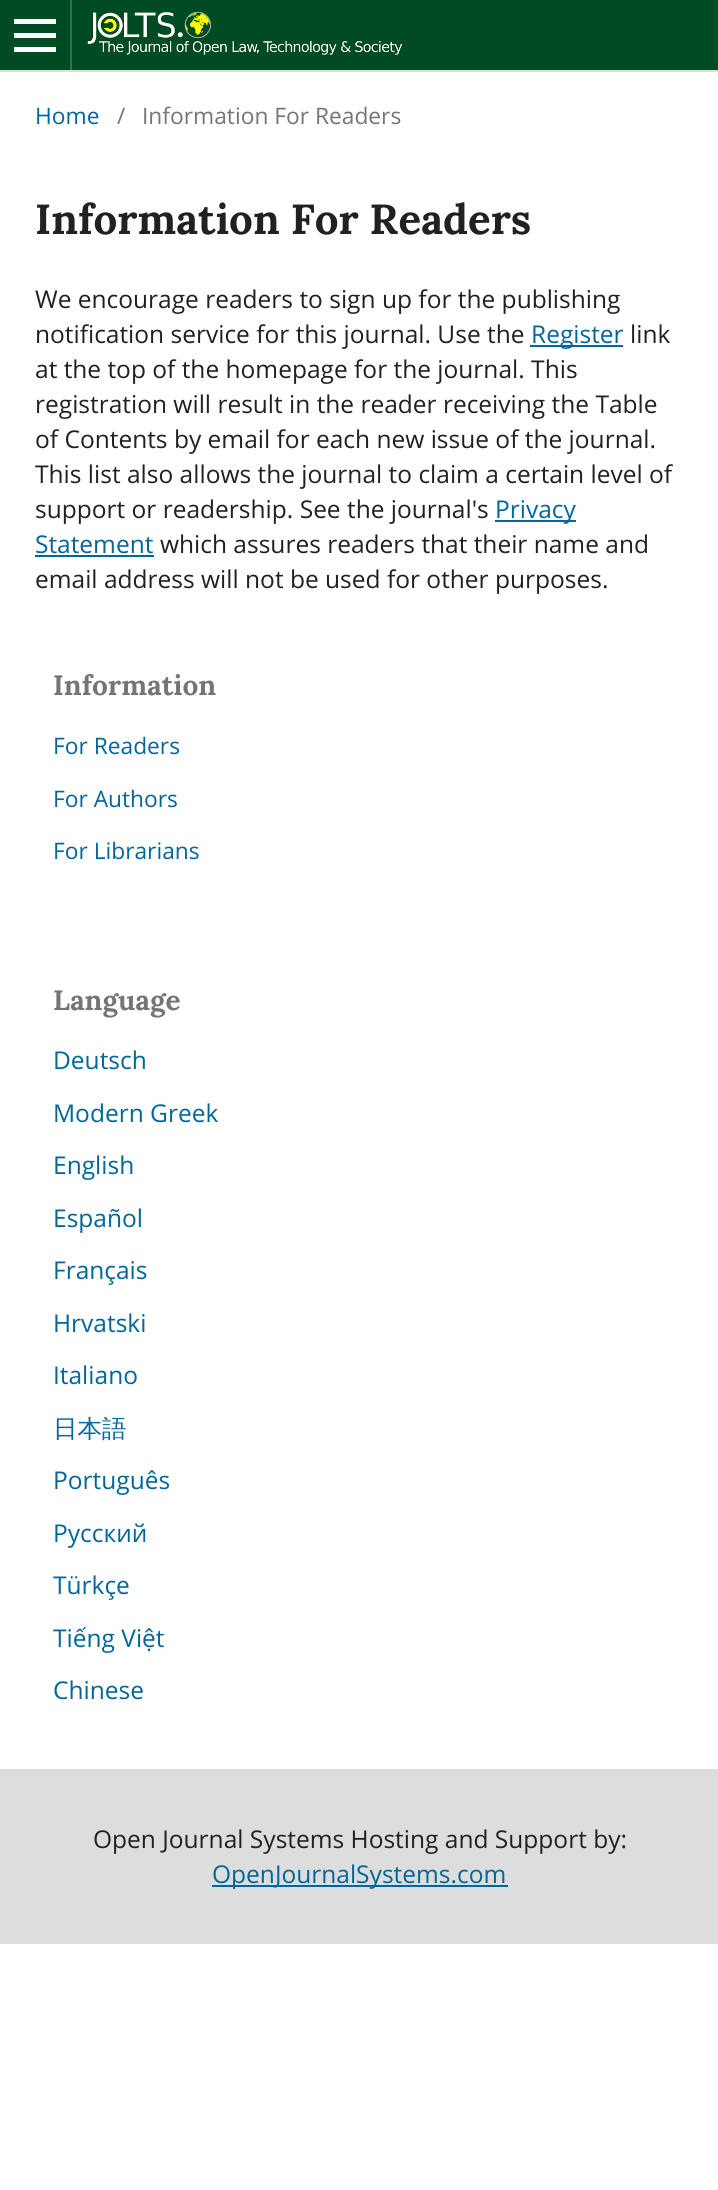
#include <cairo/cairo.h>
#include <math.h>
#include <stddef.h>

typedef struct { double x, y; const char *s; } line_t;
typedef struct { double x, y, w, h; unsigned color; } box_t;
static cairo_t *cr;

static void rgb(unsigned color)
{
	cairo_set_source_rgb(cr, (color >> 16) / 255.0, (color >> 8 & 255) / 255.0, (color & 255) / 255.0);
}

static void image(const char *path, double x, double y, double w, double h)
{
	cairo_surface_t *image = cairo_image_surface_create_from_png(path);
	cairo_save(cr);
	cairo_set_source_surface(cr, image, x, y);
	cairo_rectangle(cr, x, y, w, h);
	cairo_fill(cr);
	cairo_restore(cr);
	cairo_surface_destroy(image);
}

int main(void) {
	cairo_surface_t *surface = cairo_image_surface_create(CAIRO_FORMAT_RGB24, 718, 2190);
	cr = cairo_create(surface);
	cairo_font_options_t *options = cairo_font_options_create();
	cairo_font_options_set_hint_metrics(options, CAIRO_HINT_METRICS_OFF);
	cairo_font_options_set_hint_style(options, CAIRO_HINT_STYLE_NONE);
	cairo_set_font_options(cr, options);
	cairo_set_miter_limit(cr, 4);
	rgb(0xffffff);
	cairo_paint(cr);
	{
		static const box_t items[] = {
			{0, 0, 718, 70, 0x004c22},
			{0, 70, 718, 2, 0xdddddd},
			{70, 0, 2, 70, 0x33704e},
			{14, 47, 42, 5, 0xffffff},
			{14, 19, 42, 5, 0xffffff},
			{14, 33, 42, 5, 0xffffff},
		};
		for (size_t i = 0; i < sizeof items / sizeof *items; i++) {
			rgb(items[i].color);
			cairo_rectangle(cr, items[i].x, items[i].y, items[i].w, items[i].h);
			cairo_fill(cr);
		}
	}
	image("img/1.png", 87, 11, 316, 45);
	{
		static const box_t items[] = {
			{530, 345, 93, 2, 0x006798},
			{495, 520, 81, 2, 0x006798},
			{35, 555, 119, 2, 0x006798},
			{0, 1769, 718, 175, 0xdddddd},
			{212, 1885, 296, 2, 0x006798},
		};
		for (size_t i = 0; i < sizeof items / sizeof *items; i++) {
			rgb(items[i].color);
			cairo_rectangle(cr, items[i].x, items[i].y, items[i].w, items[i].h);
			cairo_fill(cr);
		}
	}
	cairo_select_font_face(cr, "Open Sans", CAIRO_FONT_SLANT_NORMAL, CAIRO_FONT_WEIGHT_NORMAL);
	cairo_set_font_size(cr, 22.75);
	cairo_move_to(cr, 35, 124);
	cairo_show_text(cr, "Home");
	rgb(0x757575);
	cairo_move_to(cr, 117, 124);
	cairo_show_text(cr, "/");
	cairo_move_to(cr, 142, 124);
	cairo_show_text(cr, "Information For Readers");
	cairo_select_font_face(cr, "Lora", CAIRO_FONT_SLANT_NORMAL, CAIRO_FONT_WEIGHT_BOLD);
	cairo_set_font_size(cr, 42);
	rgb(0x212121);
	cairo_move_to(cr, 35, 234);
	cairo_show_text(cr, "Information For Readers");
	cairo_select_font_face(cr, "Open Sans", CAIRO_FONT_SLANT_NORMAL, CAIRO_FONT_WEIGHT_NORMAL);
	cairo_set_font_size(cr, 24.5);
	cairo_move_to(cr, 35, 308);
	cairo_show_text(cr, "We encourage readers to sign up for the publishing");
	cairo_move_to(cr, 35, 343);
	cairo_show_text(cr, "notification service for this journal. Use the");
	rgb(0x006798);
	cairo_move_to(cr, 531, 343);
	cairo_show_text(cr, "Register");
	rgb(0x212121);
	{
		static const line_t items[] = {
			{630, 343, "link"},
			{35, 378, "at the top of the homepage for the journal. This"},
			{35, 413, "registration will result in the reader receiving the Table"},
			{35, 448, "of Contents by email for each new issue of the journal."},
			{35, 483, "This list also allows the journal to claim a certain level of"},
			{35, 518, "support or readership. See the journal's"},
		};
		for (size_t i = 0; i < sizeof items / sizeof *items; i++) {
			cairo_move_to(cr, items[i].x, items[i].y);
			cairo_show_text(cr, items[i].s);
		}
	}
	rgb(0x006798);
	cairo_move_to(cr, 495, 518);
	cairo_show_text(cr, "Privacy");
	cairo_move_to(cr, 35, 553);
	cairo_show_text(cr, "Statement");
	rgb(0x212121);
	cairo_move_to(cr, 160, 553);
	cairo_show_text(cr, "which assures readers that their name and");
	cairo_move_to(cr, 35, 588);
	cairo_show_text(cr, "email address will not be used for other purposes.");
	cairo_select_font_face(cr, "Lora", CAIRO_FONT_SLANT_NORMAL, CAIRO_FONT_WEIGHT_BOLD);
	cairo_set_font_size(cr, 28);
	rgb(0x757575);
	cairo_move_to(cr, 53, 695);
	cairo_show_text(cr, "Information");
	cairo_select_font_face(cr, "Open Sans", CAIRO_FONT_SLANT_NORMAL, CAIRO_FONT_WEIGHT_NORMAL);
	cairo_set_font_size(cr, 22.75);
	rgb(0x006798);
	{
		static const line_t items[] = {
			{53, 754, "For Readers"},
			{53, 807, "For Authors"},
			{53, 859, "For Librarians"},
		};
		for (size_t i = 0; i < sizeof items / sizeof *items; i++) {
			cairo_move_to(cr, items[i].x, items[i].y);
			cairo_show_text(cr, items[i].s);
		}
	}
	cairo_select_font_face(cr, "Lora", CAIRO_FONT_SLANT_NORMAL, CAIRO_FONT_WEIGHT_BOLD);
	cairo_set_font_size(cr, 28);
	rgb(0x757575);
	cairo_move_to(cr, 53, 1010);
	cairo_show_text(cr, "Language");
	cairo_select_font_face(cr, "Open Sans", CAIRO_FONT_SLANT_NORMAL, CAIRO_FONT_WEIGHT_NORMAL);
	cairo_set_font_size(cr, 24.5);
	rgb(0x006798);
	{
		static const line_t items[] = {
			{53, 1069, "Deutsch"},
			{53, 1122, "Modern Greek"},
			{53, 1174, "English"},
			{53, 1227, "Español"},
			{53, 1279, "Français"},
			{53, 1332, "Hrvatski"},
			{53, 1384, "Italiano"},
		};
		for (size_t i = 0; i < sizeof items / sizeof *items; i++) {
			cairo_move_to(cr, items[i].x, items[i].y);
			cairo_show_text(cr, items[i].s);
		}
	}
	cairo_select_font_face(cr, "WenQuanYi Zen Hei Medium", CAIRO_FONT_SLANT_NORMAL, CAIRO_FONT_WEIGHT_NORMAL);
	cairo_move_to(cr, 53, 1437);
	cairo_show_text(cr, "日本語");
	cairo_select_font_face(cr, "Open Sans", CAIRO_FONT_SLANT_NORMAL, CAIRO_FONT_WEIGHT_NORMAL);
	{
		static const line_t items[] = {
			{53, 1489, "Português"},
			{53, 1542, "Русский"},
			{53, 1594, "Türkçe"},
			{53, 1647, "Tiếng Việt"},
			{53, 1699, "Chinese"},
		};
		for (size_t i = 0; i < sizeof items / sizeof *items; i++) {
			cairo_move_to(cr, items[i].x, items[i].y);
			cairo_show_text(cr, items[i].s);
		}
	}
	rgb(0x212121);
	cairo_move_to(cr, 93, 1848);
	cairo_show_text(cr, "Open Journal Systems Hosting and Support by:");
	rgb(0x006798);
	cairo_move_to(cr, 212, 1883);
	cairo_show_text(cr, "OpenJournalSystems.com");
	cairo_surface_write_to_png(surface, "page.png");
	cairo_font_options_destroy(options);
	cairo_destroy(cr);
	cairo_surface_destroy(surface);
	return 0;
}
